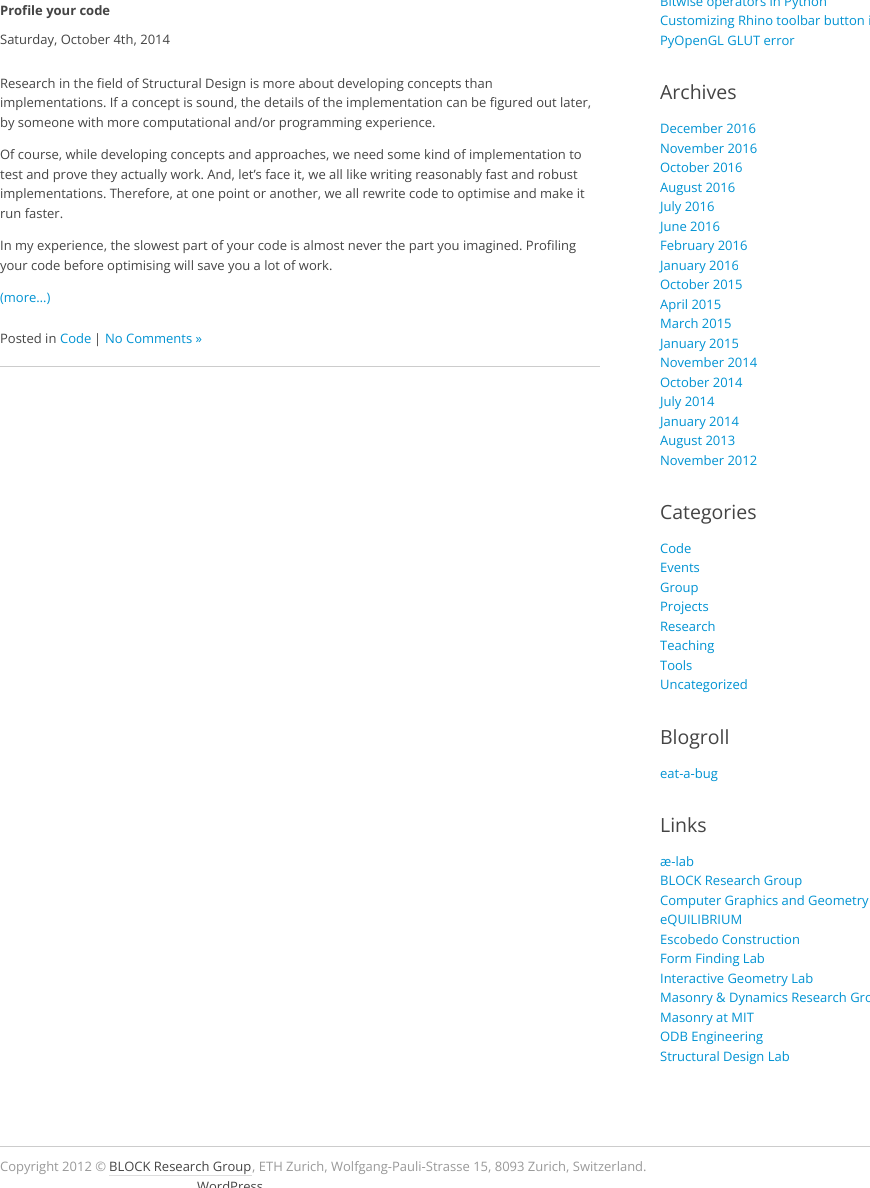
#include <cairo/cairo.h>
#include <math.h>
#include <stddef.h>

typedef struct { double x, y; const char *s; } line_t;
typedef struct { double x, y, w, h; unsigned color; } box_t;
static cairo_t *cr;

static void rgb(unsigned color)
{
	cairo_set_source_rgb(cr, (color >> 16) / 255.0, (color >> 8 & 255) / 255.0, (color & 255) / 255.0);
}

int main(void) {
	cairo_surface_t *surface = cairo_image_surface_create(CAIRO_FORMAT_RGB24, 870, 1188);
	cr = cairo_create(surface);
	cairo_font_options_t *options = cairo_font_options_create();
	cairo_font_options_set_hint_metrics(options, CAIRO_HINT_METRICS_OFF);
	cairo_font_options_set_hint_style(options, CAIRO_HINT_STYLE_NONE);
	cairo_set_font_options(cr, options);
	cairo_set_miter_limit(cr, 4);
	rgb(0xffffff);
	cairo_paint(cr);
	{
		static const box_t items[] = {
			{0, 366, 600, 1, 0xcccccc},
			{0, 1146, 870, 1, 0xcccccc},
			{109, 1175, 143, 1, 0xdddddd},
		};
		for (size_t i = 0; i < sizeof items / sizeof *items; i++) {
			rgb(items[i].color);
			cairo_rectangle(cr, items[i].x, items[i].y, items[i].w, items[i].h);
			cairo_fill(cr);
		}
	}
	cairo_select_font_face(cr, "Open Sans", CAIRO_FONT_SLANT_NORMAL, CAIRO_FONT_WEIGHT_BOLD);
	cairo_set_font_size(cr, 13);
	rgb(0x444444);
	cairo_move_to(cr, 0, 15);
	cairo_show_text(cr, "Profile your code");
	cairo_select_font_face(cr, "Open Sans", CAIRO_FONT_SLANT_NORMAL, CAIRO_FONT_WEIGHT_NORMAL);
	{
		static const line_t items[] = {
			{0, 44, "Saturday, October 4th, 2014"},
			{0, 88, "Research in the field of Structural Design is more about developing concepts than"},
			{0, 107, "implementations. If a concept is sound, the details of the implementation can be figured out later,"},
			{0, 127, "by someone with more computational and/or programming experience."},
			{0, 159, "Of course, while developing concepts and approaches, we need some kind of implementation to"},
			{0, 179, "test and prove they actually work. And, let’s face it, we all like writing reasonably fast and robust"},
			{0, 198, "implementations. Therefore, at one point or another, we all rewrite code to optimise and make it"},
			{0, 218, "run faster."},
			{0, 250, "In my experience, the slowest part of your code is almost never the part you imagined. Profiling"},
			{0, 270, "your code before optimising will save you a lot of work."},
		};
		for (size_t i = 0; i < sizeof items / sizeof *items; i++) {
			cairo_move_to(cr, items[i].x, items[i].y);
			cairo_show_text(cr, items[i].s);
		}
	}
	rgb(0x0092d2);
	cairo_move_to(cr, 0, 302);
	cairo_show_text(cr, "(more…)");
	rgb(0x444444);
	cairo_move_to(cr, 0, 343);
	cairo_show_text(cr, "Posted in");
	rgb(0x0092d2);
	cairo_move_to(cr, 60, 343);
	cairo_show_text(cr, "Code");
	rgb(0x444444);
	cairo_move_to(cr, 94, 343);
	cairo_show_text(cr, "|");
	rgb(0x0092d2);
	{
		static const line_t items[] = {
			{105, 343, "No Comments »"},
			{660, 6, "Bitwise operators in Python"},
			{660, 25, "Customizing Rhino toolbar button i"},
			{660, 45, "PyOpenGL GLUT error"},
		};
		for (size_t i = 0; i < sizeof items / sizeof *items; i++) {
			cairo_move_to(cr, items[i].x, items[i].y);
			cairo_show_text(cr, items[i].s);
		}
	}
	cairo_set_font_size(cr, 19.5);
	rgb(0x444444);
	cairo_move_to(cr, 660, 99);
	cairo_show_text(cr, "Archives");
	cairo_set_font_size(cr, 13);
	rgb(0x0092d2);
	{
		static const line_t items[] = {
			{660, 133, "December 2016"},
			{660, 153, "November 2016"},
			{660, 172, "October 2016"},
			{660, 192, "August 2016"},
			{660, 211, "July 2016"},
			{660, 231, "June 2016"},
			{660, 250, "February 2016"},
			{660, 270, "January 2016"},
			{660, 289, "October 2015"},
			{660, 309, "April 2015"},
			{660, 328, "March 2015"},
			{660, 348, "January 2015"},
			{660, 367, "November 2014"},
			{660, 387, "October 2014"},
			{660, 406, "July 2014"},
			{660, 426, "January 2014"},
			{660, 445, "August 2013"},
			{660, 465, "November 2012"},
		};
		for (size_t i = 0; i < sizeof items / sizeof *items; i++) {
			cairo_move_to(cr, items[i].x, items[i].y);
			cairo_show_text(cr, items[i].s);
		}
	}
	cairo_set_font_size(cr, 19.5);
	rgb(0x444444);
	cairo_move_to(cr, 660, 519);
	cairo_show_text(cr, "Categories");
	cairo_set_font_size(cr, 13);
	rgb(0x0092d2);
	{
		static const line_t items[] = {
			{660, 553, "Code"},
			{660, 572, "Events"},
			{660, 592, "Group"},
			{660, 611, "Projects"},
			{660, 631, "Research"},
			{660, 650, "Teaching"},
			{660, 670, "Tools"},
			{660, 689, "Uncategorized"},
		};
		for (size_t i = 0; i < sizeof items / sizeof *items; i++) {
			cairo_move_to(cr, items[i].x, items[i].y);
			cairo_show_text(cr, items[i].s);
		}
	}
	cairo_set_font_size(cr, 19.5);
	rgb(0x444444);
	cairo_move_to(cr, 660, 744);
	cairo_show_text(cr, "Blogroll");
	cairo_set_font_size(cr, 13);
	rgb(0x0092d2);
	cairo_move_to(cr, 660, 778);
	cairo_show_text(cr, "eat-a-bug");
	cairo_set_font_size(cr, 19.5);
	rgb(0x444444);
	cairo_move_to(cr, 660, 832);
	cairo_show_text(cr, "Links");
	cairo_set_font_size(cr, 13);
	rgb(0x0092d2);
	{
		static const line_t items[] = {
			{660, 866, "æ-lab"},
			{660, 885, "BLOCK Research Group"},
			{660, 905, "Computer Graphics and Geometry"},
			{660, 924, "eQUILIBRIUM"},
			{660, 944, "Escobedo Construction"},
			{660, 963, "Form Finding Lab"},
			{660, 983, "Interactive Geometry Lab"},
			{660, 1002, "Masonry & Dynamics Research Gro"},
			{660, 1022, "Masonry at MIT"},
			{660, 1041, "ODB Engineering"},
			{660, 1061, "Structural Design Lab"},
		};
		for (size_t i = 0; i < sizeof items / sizeof *items; i++) {
			cairo_move_to(cr, items[i].x, items[i].y);
			cairo_show_text(cr, items[i].s);
		}
	}
	rgb(0x999999);
	cairo_move_to(cr, 0, 1171);
	cairo_show_text(cr, "Copyright 2012 ©");
	rgb(0x444444);
	cairo_move_to(cr, 109, 1171);
	cairo_show_text(cr, "BLOCK Research Group");
	rgb(0x999999);
	cairo_move_to(cr, 252, 1171);
	cairo_show_text(cr, ", ETH Zurich, Wolfgang-Pauli-Strasse 15, 8093 Zurich, Switzerland.");
	rgb(0x444444);
	cairo_move_to(cr, 197, 1191);
	cairo_show_text(cr, "WordPress");
	cairo_surface_write_to_png(surface, "page.png");
	cairo_font_options_destroy(options);
	cairo_destroy(cr);
	cairo_surface_destroy(surface);
	return 0;
}
